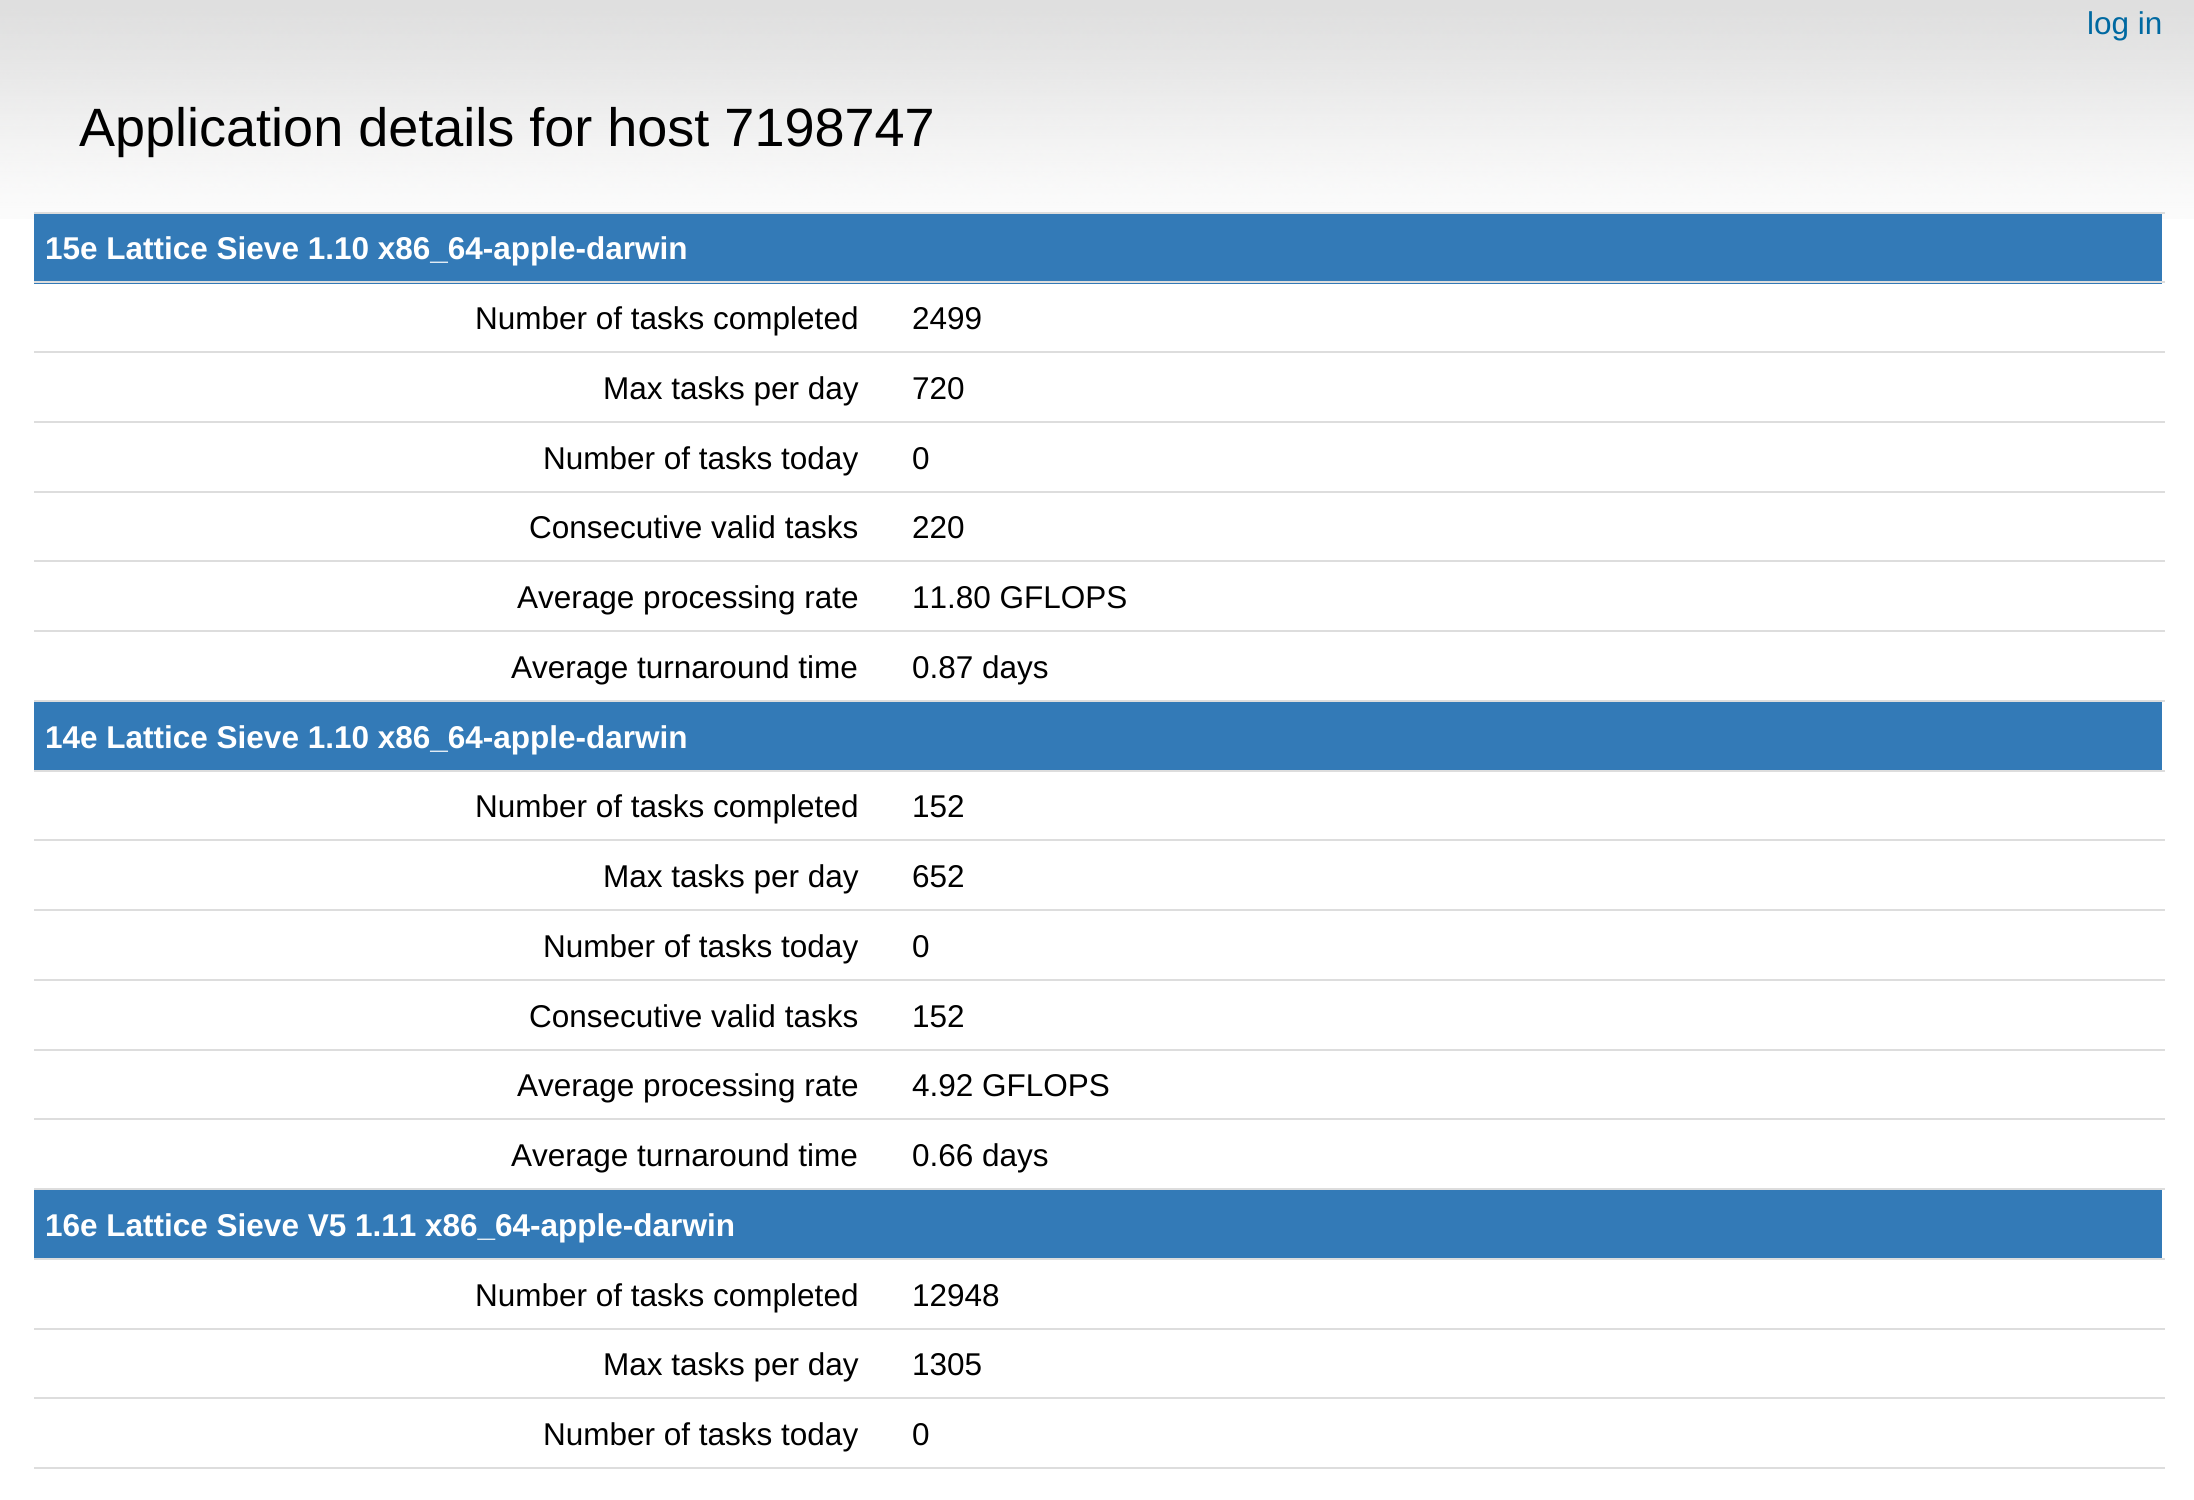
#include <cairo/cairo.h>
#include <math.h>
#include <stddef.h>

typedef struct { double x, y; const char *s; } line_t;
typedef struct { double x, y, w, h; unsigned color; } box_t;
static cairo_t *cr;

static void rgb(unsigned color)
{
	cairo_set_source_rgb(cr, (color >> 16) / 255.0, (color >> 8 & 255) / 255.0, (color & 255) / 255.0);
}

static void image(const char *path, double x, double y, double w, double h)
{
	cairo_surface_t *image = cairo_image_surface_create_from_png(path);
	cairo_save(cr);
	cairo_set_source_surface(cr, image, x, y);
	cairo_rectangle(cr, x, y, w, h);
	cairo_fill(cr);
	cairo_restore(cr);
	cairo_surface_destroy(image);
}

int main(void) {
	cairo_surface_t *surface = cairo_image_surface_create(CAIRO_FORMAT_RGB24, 2194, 1500);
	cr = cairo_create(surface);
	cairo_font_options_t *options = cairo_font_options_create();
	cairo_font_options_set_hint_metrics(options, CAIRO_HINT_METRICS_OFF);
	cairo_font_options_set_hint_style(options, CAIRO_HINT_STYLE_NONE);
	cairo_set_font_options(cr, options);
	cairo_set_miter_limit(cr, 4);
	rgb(0xffffff);
	cairo_paint(cr);
	image("img/1.png", 0, 0, 2194, 219);
	{
		static const box_t items[] = {
			{34, 214, 2128, 70, 0x337ab7},
			{34, 212, 2131, 2, 0xdddddd},
			{34, 281, 2131, 2, 0xdddddd},
			{34, 351, 2131, 2, 0xdddddd},
			{34, 421, 2131, 2, 0xdddddd},
			{34, 491, 2131, 2, 0xdddddd},
			{34, 560, 2131, 2, 0xdddddd},
			{34, 630, 2131, 2, 0xdddddd},
			{34, 702, 2128, 68, 0x337ab7},
			{34, 700, 2131, 2, 0xdddddd},
			{34, 770, 2131, 2, 0xdddddd},
			{34, 839, 2131, 2, 0xdddddd},
			{34, 909, 2131, 2, 0xdddddd},
			{34, 979, 2131, 2, 0xdddddd},
			{34, 1049, 2131, 2, 0xdddddd},
			{34, 1118, 2131, 2, 0xdddddd},
			{34, 1190, 2128, 68, 0x337ab7},
			{34, 1188, 2131, 2, 0xdddddd},
			{34, 1258, 2131, 2, 0xdddddd},
			{34, 1328, 2131, 2, 0xdddddd},
			{34, 1397, 2131, 2, 0xdddddd},
			{34, 1467, 2131, 2, 0xdddddd},
		};
		for (size_t i = 0; i < sizeof items / sizeof *items; i++) {
			rgb(items[i].color);
			cairo_rectangle(cr, items[i].x, items[i].y, items[i].w, items[i].h);
			cairo_fill(cr);
		}
	}
	cairo_select_font_face(cr, "Liberation Sans", CAIRO_FONT_SLANT_NORMAL, CAIRO_FONT_WEIGHT_NORMAL);
	cairo_set_font_size(cr, 31.5);
	rgb(0x0069a1);
	cairo_move_to(cr, 2087, 34);
	cairo_show_text(cr, "log in");
	cairo_set_font_size(cr, 54);
	rgb(0x000000);
	cairo_move_to(cr, 79, 146);
	cairo_show_text(cr, "Application details for host 7198747");
	cairo_select_font_face(cr, "Liberation Sans", CAIRO_FONT_SLANT_NORMAL, CAIRO_FONT_WEIGHT_BOLD);
	cairo_set_font_size(cr, 31.5);
	rgb(0xffffff);
	cairo_move_to(cr, 45, 259);
	cairo_show_text(cr, "15e Lattice Sieve 1.10 x86_64-apple-darwin");
	cairo_select_font_face(cr, "Liberation Sans", CAIRO_FONT_SLANT_NORMAL, CAIRO_FONT_WEIGHT_NORMAL);
	rgb(0x000000);
	{
		static const line_t items[] = {
			{475, 329, "Number of tasks completed"},
			{912, 329, "2499"},
			{603, 399, "Max tasks per day"},
			{912, 399, "720"},
			{543, 469, "Number of tasks today"},
			{912, 469, "0"},
			{529, 538, "Consecutive valid tasks"},
			{912, 538, "220"},
			{517, 608, "Average processing rate"},
			{912, 608, "11.80 GFLOPS"},
			{511, 678, "Average turnaround time"},
			{912, 678, "0.87 days"},
		};
		for (size_t i = 0; i < sizeof items / sizeof *items; i++) {
			cairo_move_to(cr, items[i].x, items[i].y);
			cairo_show_text(cr, items[i].s);
		}
	}
	cairo_select_font_face(cr, "Liberation Sans", CAIRO_FONT_SLANT_NORMAL, CAIRO_FONT_WEIGHT_BOLD);
	rgb(0xffffff);
	cairo_move_to(cr, 45, 748);
	cairo_show_text(cr, "14e Lattice Sieve 1.10 x86_64-apple-darwin");
	cairo_select_font_face(cr, "Liberation Sans", CAIRO_FONT_SLANT_NORMAL, CAIRO_FONT_WEIGHT_NORMAL);
	rgb(0x000000);
	{
		static const line_t items[] = {
			{475, 817, "Number of tasks completed"},
			{912, 817, "152"},
			{603, 887, "Max tasks per day"},
			{912, 887, "652"},
			{543, 957, "Number of tasks today"},
			{912, 957, "0"},
			{529, 1027, "Consecutive valid tasks"},
			{912, 1027, "152"},
			{517, 1096, "Average processing rate"},
			{912, 1096, "4.92 GFLOPS"},
			{511, 1166, "Average turnaround time"},
			{912, 1166, "0.66 days"},
		};
		for (size_t i = 0; i < sizeof items / sizeof *items; i++) {
			cairo_move_to(cr, items[i].x, items[i].y);
			cairo_show_text(cr, items[i].s);
		}
	}
	cairo_select_font_face(cr, "Liberation Sans", CAIRO_FONT_SLANT_NORMAL, CAIRO_FONT_WEIGHT_BOLD);
	rgb(0xffffff);
	cairo_move_to(cr, 45, 1236);
	cairo_show_text(cr, "16e Lattice Sieve V5 1.11 x86_64-apple-darwin");
	cairo_select_font_face(cr, "Liberation Sans", CAIRO_FONT_SLANT_NORMAL, CAIRO_FONT_WEIGHT_NORMAL);
	rgb(0x000000);
	{
		static const line_t items[] = {
			{475, 1306, "Number of tasks completed"},
			{912, 1306, "12948"},
			{603, 1375, "Max tasks per day"},
			{912, 1375, "1305"},
			{543, 1445, "Number of tasks today"},
			{912, 1445, "0"},
		};
		for (size_t i = 0; i < sizeof items / sizeof *items; i++) {
			cairo_move_to(cr, items[i].x, items[i].y);
			cairo_show_text(cr, items[i].s);
		}
	}
	cairo_surface_write_to_png(surface, "page.png");
	cairo_font_options_destroy(options);
	cairo_destroy(cr);
	cairo_surface_destroy(surface);
	return 0;
}
